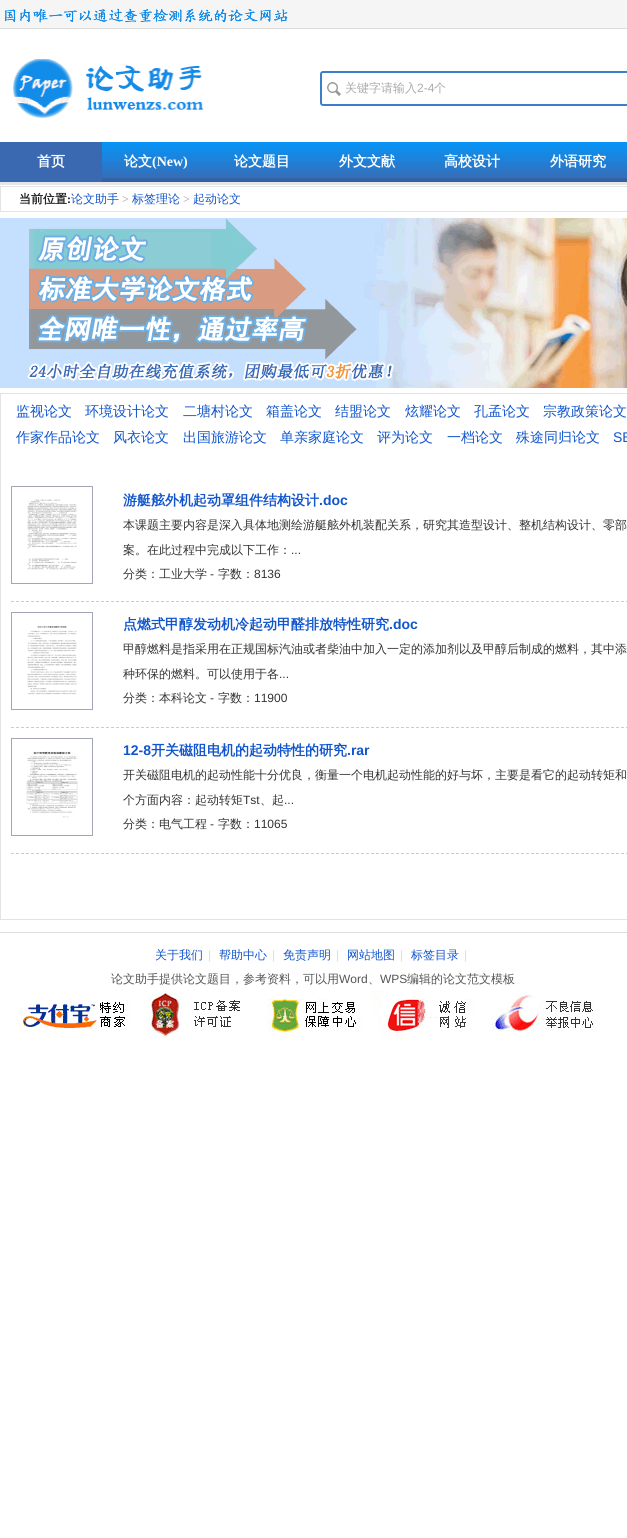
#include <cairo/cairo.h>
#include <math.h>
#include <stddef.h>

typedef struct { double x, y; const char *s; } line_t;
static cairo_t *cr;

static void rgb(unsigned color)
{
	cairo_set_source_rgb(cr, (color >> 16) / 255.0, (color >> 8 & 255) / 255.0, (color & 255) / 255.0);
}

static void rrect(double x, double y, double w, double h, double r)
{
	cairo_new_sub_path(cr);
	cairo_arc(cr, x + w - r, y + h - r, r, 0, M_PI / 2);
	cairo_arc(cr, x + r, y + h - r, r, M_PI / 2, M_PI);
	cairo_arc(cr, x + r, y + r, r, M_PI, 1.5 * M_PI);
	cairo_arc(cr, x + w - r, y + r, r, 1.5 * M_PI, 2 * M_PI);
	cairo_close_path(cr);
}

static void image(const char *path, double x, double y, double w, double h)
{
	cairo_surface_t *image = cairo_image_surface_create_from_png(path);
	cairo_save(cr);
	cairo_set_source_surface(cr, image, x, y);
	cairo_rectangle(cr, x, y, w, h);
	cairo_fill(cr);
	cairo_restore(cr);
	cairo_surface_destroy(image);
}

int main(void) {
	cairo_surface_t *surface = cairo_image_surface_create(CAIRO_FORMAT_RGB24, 627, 1538);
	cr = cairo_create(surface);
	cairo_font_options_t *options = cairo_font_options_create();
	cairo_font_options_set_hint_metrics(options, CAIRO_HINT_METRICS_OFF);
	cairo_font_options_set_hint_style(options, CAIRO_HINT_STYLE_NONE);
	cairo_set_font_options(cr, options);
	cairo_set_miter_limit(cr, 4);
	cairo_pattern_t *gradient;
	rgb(0xffffff);
	cairo_paint(cr);
	rgb(0xf5f5f5);
	cairo_rectangle(cr, 0, 0, 627, 28);
	cairo_fill(cr);
	rgb(0xdcdcdc);
	cairo_rectangle(cr, 0, 28, 627, 1);
	cairo_fill(cr);
	image("img/1.png", 4, 8, 284, 15);
	image("img/2.png", 12, 59, 192, 59);
	image("img/3.png", 327, 82, 14, 14);
	rrect(321, 72, 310, 33, 2);
	rgb(0x3d7ecb);
	cairo_stroke(cr);
	rgb(0xe6e6e6);
	cairo_rectangle(cr, 0, 182, 627, 3);
	cairo_fill(cr);
	gradient = cairo_pattern_create_linear(480, 142, 480, 182);
	cairo_pattern_add_color_stop_rgba(gradient, 0, 0.024, 0.584, 0.973, 1);
	cairo_pattern_add_color_stop_rgba(gradient, 1, 0.231, 0.412, 0.694, 1);
	cairo_set_source(cr, gradient);
	cairo_pattern_destroy(gradient);
	cairo_rectangle(cr, 102, 142, 525, 36);
	cairo_fill(cr);
	gradient = cairo_pattern_create_linear(480, 142, 480, 182);
	cairo_pattern_add_color_stop_rgba(gradient, 0, 0.02, 0.525, 0.875, 1);
	cairo_pattern_add_color_stop_rgba(gradient, 1, 0.208, 0.373, 0.624, 1);
	cairo_set_source(cr, gradient);
	cairo_pattern_destroy(gradient);
	cairo_rectangle(cr, 102, 178, 525, 4);
	cairo_fill(cr);
	rgb(0x3b69b1);
	cairo_rectangle(cr, 0, 142, 102, 40);
	cairo_fill(cr);
	cairo_rectangle(cr, 0.5, 186.5, 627, 25);
	rgb(0xe3e3e3);
	cairo_set_line_width(cr, 1);
	cairo_stroke(cr);
	image("img/4.png", 0, 218, 627, 170);
	cairo_rectangle(cr, 0.5, 393.5, 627, 526);
	cairo_stroke(cr);
	cairo_new_path(cr);
	cairo_move_to(cr, 11, 601.5);
	cairo_line_to(cr, 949, 601.5);
	rgb(0xcccccc);
	cairo_set_dash(cr, (double[]){3, 2}, 2, 0);
	cairo_stroke(cr);
	cairo_rectangle(cr, 11.5, 486.5, 81, 97);
	rgb(0xa4a5b7);
	cairo_set_dash(cr, NULL, 0, 0);
	cairo_stroke(cr);
	image("img/5.png", 27, 499, 50, 71);
	cairo_new_path(cr);
	cairo_move_to(cr, 11, 727.5);
	cairo_line_to(cr, 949, 727.5);
	rgb(0xcccccc);
	cairo_set_dash(cr, (double[]){3, 2}, 2, 0);
	cairo_stroke(cr);
	cairo_rectangle(cr, 11.5, 612.5, 81, 97);
	rgb(0xa4a5b7);
	cairo_set_dash(cr, NULL, 0, 0);
	cairo_stroke(cr);
	image("img/6.png", 27, 626, 50, 69);
	cairo_new_path(cr);
	cairo_move_to(cr, 11, 853.5);
	cairo_line_to(cr, 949, 853.5);
	rgb(0xcccccc);
	cairo_set_dash(cr, (double[]){3, 2}, 2, 0);
	cairo_stroke(cr);
	cairo_rectangle(cr, 11.5, 738.5, 81, 97);
	rgb(0xa4a5b7);
	cairo_set_dash(cr, NULL, 0, 0);
	cairo_stroke(cr);
	image("img/7.png", 26, 751, 52, 67);
	rgb(0xdddddd);
	cairo_rectangle(cr, 0, 932, 627, 1);
	cairo_fill(cr);
	image("img/8.png", 19, 991, 576, 48);
	cairo_select_font_face(cr, "WenQuanYi Zen Hei Medium", CAIRO_FONT_SLANT_NORMAL, CAIRO_FONT_WEIGHT_NORMAL);
	cairo_set_font_size(cr, 12);
	rgb(0xaaaaaa);
	cairo_move_to(cr, 345, 92);
	cairo_show_text(cr, "关键字请输入");
	cairo_select_font_face(cr, "Liberation Sans", CAIRO_FONT_SLANT_NORMAL, CAIRO_FONT_WEIGHT_NORMAL);
	cairo_move_to(cr, 417, 92);
	cairo_show_text(cr, "2-4");
	cairo_select_font_face(cr, "WenQuanYi Zen Hei Medium", CAIRO_FONT_SLANT_NORMAL, CAIRO_FONT_WEIGHT_NORMAL);
	cairo_move_to(cr, 434, 92);
	cairo_show_text(cr, "个");
	cairo_select_font_face(cr, "WenQuanYi Zen Hei", CAIRO_FONT_SLANT_NORMAL, CAIRO_FONT_WEIGHT_BOLD);
	cairo_set_font_size(cr, 14);
	rgb(0xffffff);
	cairo_move_to(cr, 37, 166);
	cairo_show_text(cr, "首页");
	cairo_move_to(cr, 124, 166);
	cairo_show_text(cr, "论文");
	cairo_select_font_face(cr, "Liberation Serif", CAIRO_FONT_SLANT_NORMAL, CAIRO_FONT_WEIGHT_BOLD);
	cairo_move_to(cr, 152, 166);
	cairo_show_text(cr, "(New)");
	cairo_select_font_face(cr, "WenQuanYi Zen Hei", CAIRO_FONT_SLANT_NORMAL, CAIRO_FONT_WEIGHT_BOLD);
	{
		static const line_t items[] = {
			{234, 166, "论文题目"},
			{339, 166, "外文文献"},
			{444, 166, "高校设计"},
			{550, 166, "外语研究"},
		};
		for (size_t i = 0; i < sizeof items / sizeof *items; i++) {
			cairo_move_to(cr, items[i].x, items[i].y);
			cairo_show_text(cr, items[i].s);
		}
	}
	cairo_set_font_size(cr, 12);
	rgb(0x222222);
	cairo_move_to(cr, 19, 203);
	cairo_show_text(cr, "当前位置");
	cairo_select_font_face(cr, "Liberation Serif", CAIRO_FONT_SLANT_NORMAL, CAIRO_FONT_WEIGHT_BOLD);
	cairo_move_to(cr, 67, 203);
	cairo_show_text(cr, ":");
	cairo_select_font_face(cr, "WenQuanYi Zen Hei Medium", CAIRO_FONT_SLANT_NORMAL, CAIRO_FONT_WEIGHT_NORMAL);
	rgb(0x1155cc);
	cairo_move_to(cr, 71, 203);
	cairo_show_text(cr, "论文助手");
	cairo_select_font_face(cr, "Liberation Serif", CAIRO_FONT_SLANT_NORMAL, CAIRO_FONT_WEIGHT_NORMAL);
	rgb(0x999999);
	cairo_move_to(cr, 122, 203);
	cairo_show_text(cr, ">");
	cairo_select_font_face(cr, "WenQuanYi Zen Hei Medium", CAIRO_FONT_SLANT_NORMAL, CAIRO_FONT_WEIGHT_NORMAL);
	rgb(0x1155cc);
	cairo_move_to(cr, 132, 203);
	cairo_show_text(cr, "标签理论");
	cairo_select_font_face(cr, "Liberation Serif", CAIRO_FONT_SLANT_NORMAL, CAIRO_FONT_WEIGHT_NORMAL);
	rgb(0x999999);
	cairo_move_to(cr, 183, 203);
	cairo_show_text(cr, ">");
	cairo_select_font_face(cr, "WenQuanYi Zen Hei Medium", CAIRO_FONT_SLANT_NORMAL, CAIRO_FONT_WEIGHT_NORMAL);
	rgb(0x1155cc);
	cairo_move_to(cr, 193, 203);
	cairo_show_text(cr, "起动论文");
	cairo_set_font_size(cr, 14);
	{
		static const line_t items[] = {
			{16, 416, "监视论文"},
			{85, 416, "环境设计论文"},
			{183, 416, "二塘村论文"},
			{266, 416, "箱盖论文"},
			{335, 416, "结盟论文"},
			{405, 416, "炫耀论文"},
			{474, 416, "孔孟论文"},
			{543, 416, "宗教政策论文"},
			{16, 442, "作家作品论文"},
			{113, 442, "风衣论文"},
			{183, 442, "出国旅游论文"},
			{280, 442, "单亲家庭论文"},
			{377, 442, "评为论文"},
			{447, 442, "一档论文"},
			{516, 442, "殊途同归论文"},
		};
		for (size_t i = 0; i < sizeof items / sizeof *items; i++) {
			cairo_move_to(cr, items[i].x, items[i].y);
			cairo_show_text(cr, items[i].s);
		}
	}
	cairo_select_font_face(cr, "Liberation Sans", CAIRO_FONT_SLANT_NORMAL, CAIRO_FONT_WEIGHT_NORMAL);
	cairo_move_to(cr, 613, 442);
	cairo_show_text(cr, "SB");
	cairo_select_font_face(cr, "WenQuanYi Zen Hei", CAIRO_FONT_SLANT_NORMAL, CAIRO_FONT_WEIGHT_BOLD);
	cairo_move_to(cr, 123, 505);
	cairo_show_text(cr, "游艇舷外机起动罩组件结构设计");
	cairo_select_font_face(cr, "Liberation Sans", CAIRO_FONT_SLANT_NORMAL, CAIRO_FONT_WEIGHT_BOLD);
	cairo_move_to(cr, 319, 505);
	cairo_show_text(cr, ".doc");
	cairo_select_font_face(cr, "WenQuanYi Zen Hei Medium", CAIRO_FONT_SLANT_NORMAL, CAIRO_FONT_WEIGHT_NORMAL);
	cairo_set_font_size(cr, 12);
	rgb(0x333333);
	cairo_move_to(cr, 123, 529);
	cairo_show_text(cr, "本课题主要内容是深入具体地测绘游艇舷外机装配关系，研究其造型设计、整机结构设计、零部");
	cairo_move_to(cr, 123, 554);
	cairo_show_text(cr, "案。在此过程中完成以下工作：");
	cairo_select_font_face(cr, "Liberation Sans", CAIRO_FONT_SLANT_NORMAL, CAIRO_FONT_WEIGHT_NORMAL);
	cairo_move_to(cr, 291, 554);
	cairo_show_text(cr, "...");
	cairo_select_font_face(cr, "WenQuanYi Zen Hei Medium", CAIRO_FONT_SLANT_NORMAL, CAIRO_FONT_WEIGHT_NORMAL);
	cairo_move_to(cr, 123, 578);
	cairo_show_text(cr, "分类：工业大学");
	cairo_select_font_face(cr, "Liberation Sans", CAIRO_FONT_SLANT_NORMAL, CAIRO_FONT_WEIGHT_NORMAL);
	cairo_move_to(cr, 210, 578);
	cairo_show_text(cr, "-");
	cairo_select_font_face(cr, "WenQuanYi Zen Hei Medium", CAIRO_FONT_SLANT_NORMAL, CAIRO_FONT_WEIGHT_NORMAL);
	cairo_move_to(cr, 218, 578);
	cairo_show_text(cr, "字数：");
	cairo_select_font_face(cr, "Liberation Sans", CAIRO_FONT_SLANT_NORMAL, CAIRO_FONT_WEIGHT_NORMAL);
	cairo_move_to(cr, 254, 578);
	cairo_show_text(cr, "8136");
	cairo_select_font_face(cr, "WenQuanYi Zen Hei", CAIRO_FONT_SLANT_NORMAL, CAIRO_FONT_WEIGHT_BOLD);
	cairo_set_font_size(cr, 14);
	rgb(0x1155cc);
	cairo_move_to(cr, 123, 629);
	cairo_show_text(cr, "点燃式甲醇发动机冷起动甲醛排放特性研究");
	cairo_select_font_face(cr, "Liberation Sans", CAIRO_FONT_SLANT_NORMAL, CAIRO_FONT_WEIGHT_BOLD);
	cairo_move_to(cr, 389, 629);
	cairo_show_text(cr, ".doc");
	cairo_select_font_face(cr, "WenQuanYi Zen Hei Medium", CAIRO_FONT_SLANT_NORMAL, CAIRO_FONT_WEIGHT_NORMAL);
	cairo_set_font_size(cr, 12);
	rgb(0x333333);
	cairo_move_to(cr, 123, 653);
	cairo_show_text(cr, "甲醇燃料是指采用在正规国标汽油或者柴油中加入一定的添加剂以及甲醇后制成的燃料，其中添");
	cairo_move_to(cr, 123, 678);
	cairo_show_text(cr, "种环保的燃料。可以使用于各");
	cairo_select_font_face(cr, "Liberation Sans", CAIRO_FONT_SLANT_NORMAL, CAIRO_FONT_WEIGHT_NORMAL);
	cairo_move_to(cr, 279, 678);
	cairo_show_text(cr, "...");
	cairo_select_font_face(cr, "WenQuanYi Zen Hei Medium", CAIRO_FONT_SLANT_NORMAL, CAIRO_FONT_WEIGHT_NORMAL);
	cairo_move_to(cr, 123, 702);
	cairo_show_text(cr, "分类：本科论文");
	cairo_select_font_face(cr, "Liberation Sans", CAIRO_FONT_SLANT_NORMAL, CAIRO_FONT_WEIGHT_NORMAL);
	cairo_move_to(cr, 210, 702);
	cairo_show_text(cr, "-");
	cairo_select_font_face(cr, "WenQuanYi Zen Hei Medium", CAIRO_FONT_SLANT_NORMAL, CAIRO_FONT_WEIGHT_NORMAL);
	cairo_move_to(cr, 218, 702);
	cairo_show_text(cr, "字数：");
	cairo_select_font_face(cr, "Liberation Sans", CAIRO_FONT_SLANT_NORMAL, CAIRO_FONT_WEIGHT_NORMAL);
	cairo_move_to(cr, 254, 702);
	cairo_show_text(cr, "11900");
	cairo_select_font_face(cr, "Liberation Sans", CAIRO_FONT_SLANT_NORMAL, CAIRO_FONT_WEIGHT_BOLD);
	cairo_set_font_size(cr, 14);
	rgb(0x1155cc);
	cairo_move_to(cr, 123, 755);
	cairo_show_text(cr, "12-8");
	cairo_select_font_face(cr, "WenQuanYi Zen Hei", CAIRO_FONT_SLANT_NORMAL, CAIRO_FONT_WEIGHT_BOLD);
	cairo_move_to(cr, 151, 755);
	cairo_show_text(cr, "开关磁阻电机的起动特性的研究");
	cairo_select_font_face(cr, "Liberation Sans", CAIRO_FONT_SLANT_NORMAL, CAIRO_FONT_WEIGHT_BOLD);
	cairo_move_to(cr, 347, 755);
	cairo_show_text(cr, ".rar");
	cairo_select_font_face(cr, "WenQuanYi Zen Hei Medium", CAIRO_FONT_SLANT_NORMAL, CAIRO_FONT_WEIGHT_NORMAL);
	cairo_set_font_size(cr, 12);
	rgb(0x333333);
	cairo_move_to(cr, 123, 779);
	cairo_show_text(cr, "开关磁阻电机的起动性能十分优良，衡量一个电机起动性能的好与坏，主要是看它的起动转矩和");
	cairo_move_to(cr, 123, 804);
	cairo_show_text(cr, "个方面内容：起动转矩");
	cairo_select_font_face(cr, "Liberation Sans", CAIRO_FONT_SLANT_NORMAL, CAIRO_FONT_WEIGHT_NORMAL);
	cairo_move_to(cr, 243, 804);
	cairo_show_text(cr, "Tst");
	cairo_select_font_face(cr, "WenQuanYi Zen Hei Medium", CAIRO_FONT_SLANT_NORMAL, CAIRO_FONT_WEIGHT_NORMAL);
	cairo_move_to(cr, 260, 804);
	cairo_show_text(cr, "、起");
	cairo_select_font_face(cr, "Liberation Sans", CAIRO_FONT_SLANT_NORMAL, CAIRO_FONT_WEIGHT_NORMAL);
	cairo_move_to(cr, 284, 804);
	cairo_show_text(cr, "...");
	cairo_select_font_face(cr, "WenQuanYi Zen Hei Medium", CAIRO_FONT_SLANT_NORMAL, CAIRO_FONT_WEIGHT_NORMAL);
	cairo_move_to(cr, 123, 828);
	cairo_show_text(cr, "分类：电气工程");
	cairo_select_font_face(cr, "Liberation Sans", CAIRO_FONT_SLANT_NORMAL, CAIRO_FONT_WEIGHT_NORMAL);
	cairo_move_to(cr, 210, 828);
	cairo_show_text(cr, "-");
	cairo_select_font_face(cr, "WenQuanYi Zen Hei Medium", CAIRO_FONT_SLANT_NORMAL, CAIRO_FONT_WEIGHT_NORMAL);
	cairo_move_to(cr, 218, 828);
	cairo_show_text(cr, "字数：");
	cairo_select_font_face(cr, "Liberation Sans", CAIRO_FONT_SLANT_NORMAL, CAIRO_FONT_WEIGHT_NORMAL);
	cairo_move_to(cr, 254, 828);
	cairo_show_text(cr, "11065");
	cairo_select_font_face(cr, "WenQuanYi Zen Hei Medium", CAIRO_FONT_SLANT_NORMAL, CAIRO_FONT_WEIGHT_NORMAL);
	rgb(0x1155cc);
	cairo_move_to(cr, 155, 959);
	cairo_show_text(cr, "关于我们");
	cairo_select_font_face(cr, "Liberation Sans", CAIRO_FONT_SLANT_NORMAL, CAIRO_FONT_WEIGHT_NORMAL);
	rgb(0xdddddd);
	cairo_move_to(cr, 208, 959);
	cairo_show_text(cr, "|");
	cairo_select_font_face(cr, "WenQuanYi Zen Hei Medium", CAIRO_FONT_SLANT_NORMAL, CAIRO_FONT_WEIGHT_NORMAL);
	rgb(0x1155cc);
	cairo_move_to(cr, 219, 959);
	cairo_show_text(cr, "帮助中心");
	cairo_select_font_face(cr, "Liberation Sans", CAIRO_FONT_SLANT_NORMAL, CAIRO_FONT_WEIGHT_NORMAL);
	rgb(0xdddddd);
	cairo_move_to(cr, 272, 959);
	cairo_show_text(cr, "|");
	cairo_select_font_face(cr, "WenQuanYi Zen Hei Medium", CAIRO_FONT_SLANT_NORMAL, CAIRO_FONT_WEIGHT_NORMAL);
	rgb(0x1155cc);
	cairo_move_to(cr, 283, 959);
	cairo_show_text(cr, "免责声明");
	cairo_select_font_face(cr, "Liberation Sans", CAIRO_FONT_SLANT_NORMAL, CAIRO_FONT_WEIGHT_NORMAL);
	rgb(0xdddddd);
	cairo_move_to(cr, 336, 959);
	cairo_show_text(cr, "|");
	cairo_select_font_face(cr, "WenQuanYi Zen Hei Medium", CAIRO_FONT_SLANT_NORMAL, CAIRO_FONT_WEIGHT_NORMAL);
	rgb(0x1155cc);
	cairo_move_to(cr, 347, 959);
	cairo_show_text(cr, "网站地图");
	cairo_select_font_face(cr, "Liberation Sans", CAIRO_FONT_SLANT_NORMAL, CAIRO_FONT_WEIGHT_NORMAL);
	rgb(0xdddddd);
	cairo_move_to(cr, 400, 959);
	cairo_show_text(cr, "|");
	cairo_select_font_face(cr, "WenQuanYi Zen Hei Medium", CAIRO_FONT_SLANT_NORMAL, CAIRO_FONT_WEIGHT_NORMAL);
	rgb(0x1155cc);
	cairo_move_to(cr, 411, 959);
	cairo_show_text(cr, "标签目录");
	cairo_select_font_face(cr, "Liberation Sans", CAIRO_FONT_SLANT_NORMAL, CAIRO_FONT_WEIGHT_NORMAL);
	rgb(0xdddddd);
	cairo_move_to(cr, 464, 959);
	cairo_show_text(cr, "|");
	cairo_select_font_face(cr, "WenQuanYi Zen Hei Medium", CAIRO_FONT_SLANT_NORMAL, CAIRO_FONT_WEIGHT_NORMAL);
	rgb(0x555555);
	cairo_move_to(cr, 111, 983);
	cairo_show_text(cr, "论文助手提供论文题目，参考资料，可以用");
	cairo_select_font_face(cr, "Liberation Sans", CAIRO_FONT_SLANT_NORMAL, CAIRO_FONT_WEIGHT_NORMAL);
	cairo_move_to(cr, 339, 983);
	cairo_show_text(cr, "Word");
	cairo_select_font_face(cr, "WenQuanYi Zen Hei Medium", CAIRO_FONT_SLANT_NORMAL, CAIRO_FONT_WEIGHT_NORMAL);
	cairo_move_to(cr, 368, 983);
	cairo_show_text(cr, "、");
	cairo_select_font_face(cr, "Liberation Sans", CAIRO_FONT_SLANT_NORMAL, CAIRO_FONT_WEIGHT_NORMAL);
	cairo_move_to(cr, 380, 983);
	cairo_show_text(cr, "WPS");
	cairo_select_font_face(cr, "WenQuanYi Zen Hei Medium", CAIRO_FONT_SLANT_NORMAL, CAIRO_FONT_WEIGHT_NORMAL);
	cairo_move_to(cr, 407, 983);
	cairo_show_text(cr, "编辑的论文范文模板");
	cairo_surface_write_to_png(surface, "page.png");
	cairo_font_options_destroy(options);
	cairo_destroy(cr);
	cairo_surface_destroy(surface);
	return 0;
}
